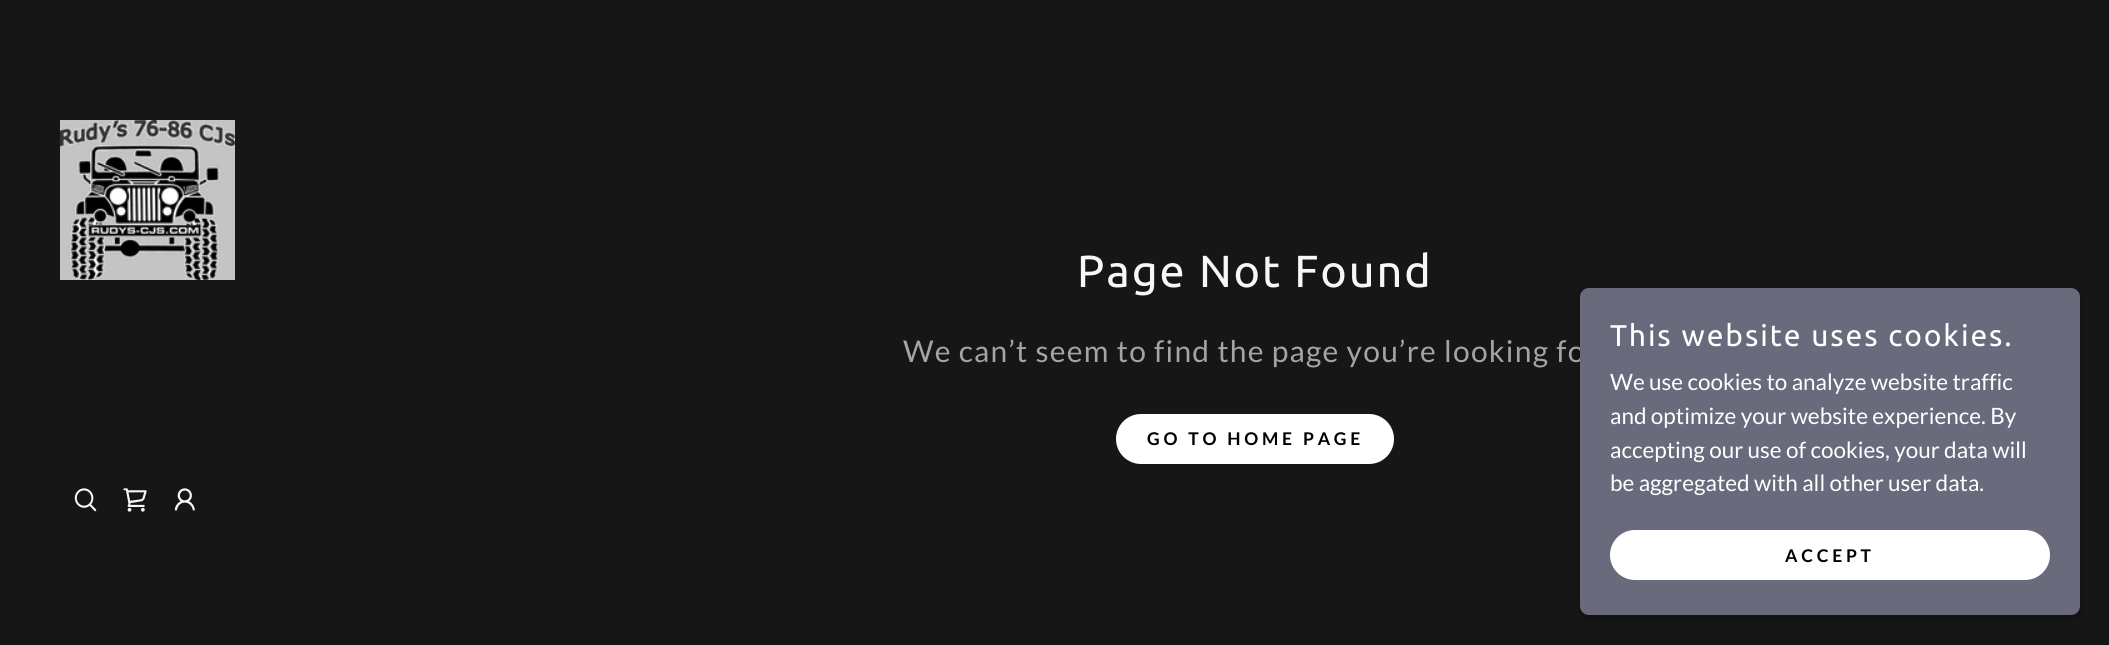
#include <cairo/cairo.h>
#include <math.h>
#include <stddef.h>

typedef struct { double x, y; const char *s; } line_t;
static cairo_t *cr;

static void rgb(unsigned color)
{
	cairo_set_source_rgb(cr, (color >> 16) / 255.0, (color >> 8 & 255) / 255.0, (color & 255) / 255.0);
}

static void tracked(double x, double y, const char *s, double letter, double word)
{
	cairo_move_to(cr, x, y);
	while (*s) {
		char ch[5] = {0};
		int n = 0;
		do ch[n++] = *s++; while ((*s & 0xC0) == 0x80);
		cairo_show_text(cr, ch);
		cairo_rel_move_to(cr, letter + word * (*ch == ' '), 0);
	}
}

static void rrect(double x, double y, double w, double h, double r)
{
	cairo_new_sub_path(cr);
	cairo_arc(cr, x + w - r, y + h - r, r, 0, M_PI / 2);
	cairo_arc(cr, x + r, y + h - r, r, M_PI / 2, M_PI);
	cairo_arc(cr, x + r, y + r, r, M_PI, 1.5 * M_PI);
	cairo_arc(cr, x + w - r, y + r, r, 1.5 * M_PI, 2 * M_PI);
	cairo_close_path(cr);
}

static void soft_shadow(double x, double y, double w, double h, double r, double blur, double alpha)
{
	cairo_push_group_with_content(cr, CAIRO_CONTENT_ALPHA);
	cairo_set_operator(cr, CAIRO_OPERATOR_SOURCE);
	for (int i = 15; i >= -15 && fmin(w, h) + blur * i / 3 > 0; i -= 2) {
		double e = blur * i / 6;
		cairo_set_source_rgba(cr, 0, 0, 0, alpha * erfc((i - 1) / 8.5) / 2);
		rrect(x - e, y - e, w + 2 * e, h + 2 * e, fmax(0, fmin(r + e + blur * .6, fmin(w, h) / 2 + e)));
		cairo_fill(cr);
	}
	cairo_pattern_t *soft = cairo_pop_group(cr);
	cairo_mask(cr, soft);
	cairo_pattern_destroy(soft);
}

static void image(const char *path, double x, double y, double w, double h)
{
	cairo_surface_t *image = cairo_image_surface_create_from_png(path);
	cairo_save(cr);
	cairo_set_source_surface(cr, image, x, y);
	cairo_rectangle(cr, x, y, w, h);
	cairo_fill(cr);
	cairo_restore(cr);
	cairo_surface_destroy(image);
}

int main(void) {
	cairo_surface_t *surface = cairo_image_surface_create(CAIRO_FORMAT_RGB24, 2109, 645);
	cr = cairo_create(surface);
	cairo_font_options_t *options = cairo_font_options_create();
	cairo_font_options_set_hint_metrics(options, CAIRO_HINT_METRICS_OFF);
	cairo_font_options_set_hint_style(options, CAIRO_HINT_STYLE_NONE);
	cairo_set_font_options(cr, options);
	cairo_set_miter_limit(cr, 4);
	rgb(0x161616);
	cairo_paint(cr);
	image("img/1.png", 60, 120, 175, 160);
	image("img/2.png", 74, 488, 23, 24);
	image("img/3.png", 123, 488, 24, 24);
	image("img/4.png", 174, 488, 21, 23);
	rgb(0xffffff);
	rrect(1116, 414, 278, 50, 25);
	cairo_fill(cr);
	rgb(0x000000);
	soft_shadow(1580, 290, 500, 328, 9, 4, 0.3);
	cairo_select_font_face(cr, "Ubuntu", CAIRO_FONT_SLANT_NORMAL, CAIRO_FONT_WEIGHT_NORMAL);
	cairo_set_font_size(cr, 45);
	rgb(0xf7f7f7);
	tracked(1077, 287, "Page Not Found", 1.9, 0);
	cairo_select_font_face(cr, "Lato", CAIRO_FONT_SLANT_NORMAL, CAIRO_FONT_WEIGHT_NORMAL);
	cairo_set_font_size(cr, 30);
	rgb(0xa4a4a4);
	tracked(903, 362, "We can’t seem to find the page you’re looking fo", 1.25, 0);
	cairo_select_font_face(cr, "Lato", CAIRO_FONT_SLANT_NORMAL, CAIRO_FONT_WEIGHT_BOLD);
	cairo_set_font_size(cr, 17.5);
	rgb(0x000000);
	tracked(1147, 445, "GO TO HOME PAGE", 3.75, 0);
	rgb(0x6a6a7d);
	rrect(1580, 288, 500, 327, 9);
	cairo_fill(cr);
	cairo_select_font_face(cr, "Ubuntu", CAIRO_FONT_SLANT_NORMAL, CAIRO_FONT_WEIGHT_NORMAL);
	cairo_set_font_size(cr, 30);
	rgb(0xffffff);
	tracked(1610, 346, "This website uses cookies.", 1.9, 0);
	cairo_select_font_face(cr, "Lato", CAIRO_FONT_SLANT_NORMAL, CAIRO_FONT_WEIGHT_NORMAL);
	cairo_set_font_size(cr, 22.5);
	{
		static const line_t items[] = {
			{1610, 390, "We use cookies to analyze website traffic"},
			{1610, 424, "and optimize your website experience. By"},
			{1610, 458, "accepting our use of cookies, your data will"},
			{1610, 491, "be aggregated with all other user data."},
		};
		for (size_t i = 0; i < sizeof items / sizeof *items; i++) {
			cairo_move_to(cr, items[i].x, items[i].y);
			cairo_show_text(cr, items[i].s);
		}
	}
	rrect(1610, 530, 440, 50, 25);
	cairo_fill(cr);
	cairo_select_font_face(cr, "Lato", CAIRO_FONT_SLANT_NORMAL, CAIRO_FONT_WEIGHT_BOLD);
	cairo_set_font_size(cr, 17.5);
	rgb(0x000000);
	tracked(1785, 562, "ACCEPT", 3.75, 0);
	cairo_surface_write_to_png(surface, "page.png");
	cairo_font_options_destroy(options);
	cairo_destroy(cr);
	cairo_surface_destroy(surface);
	return 0;
}
